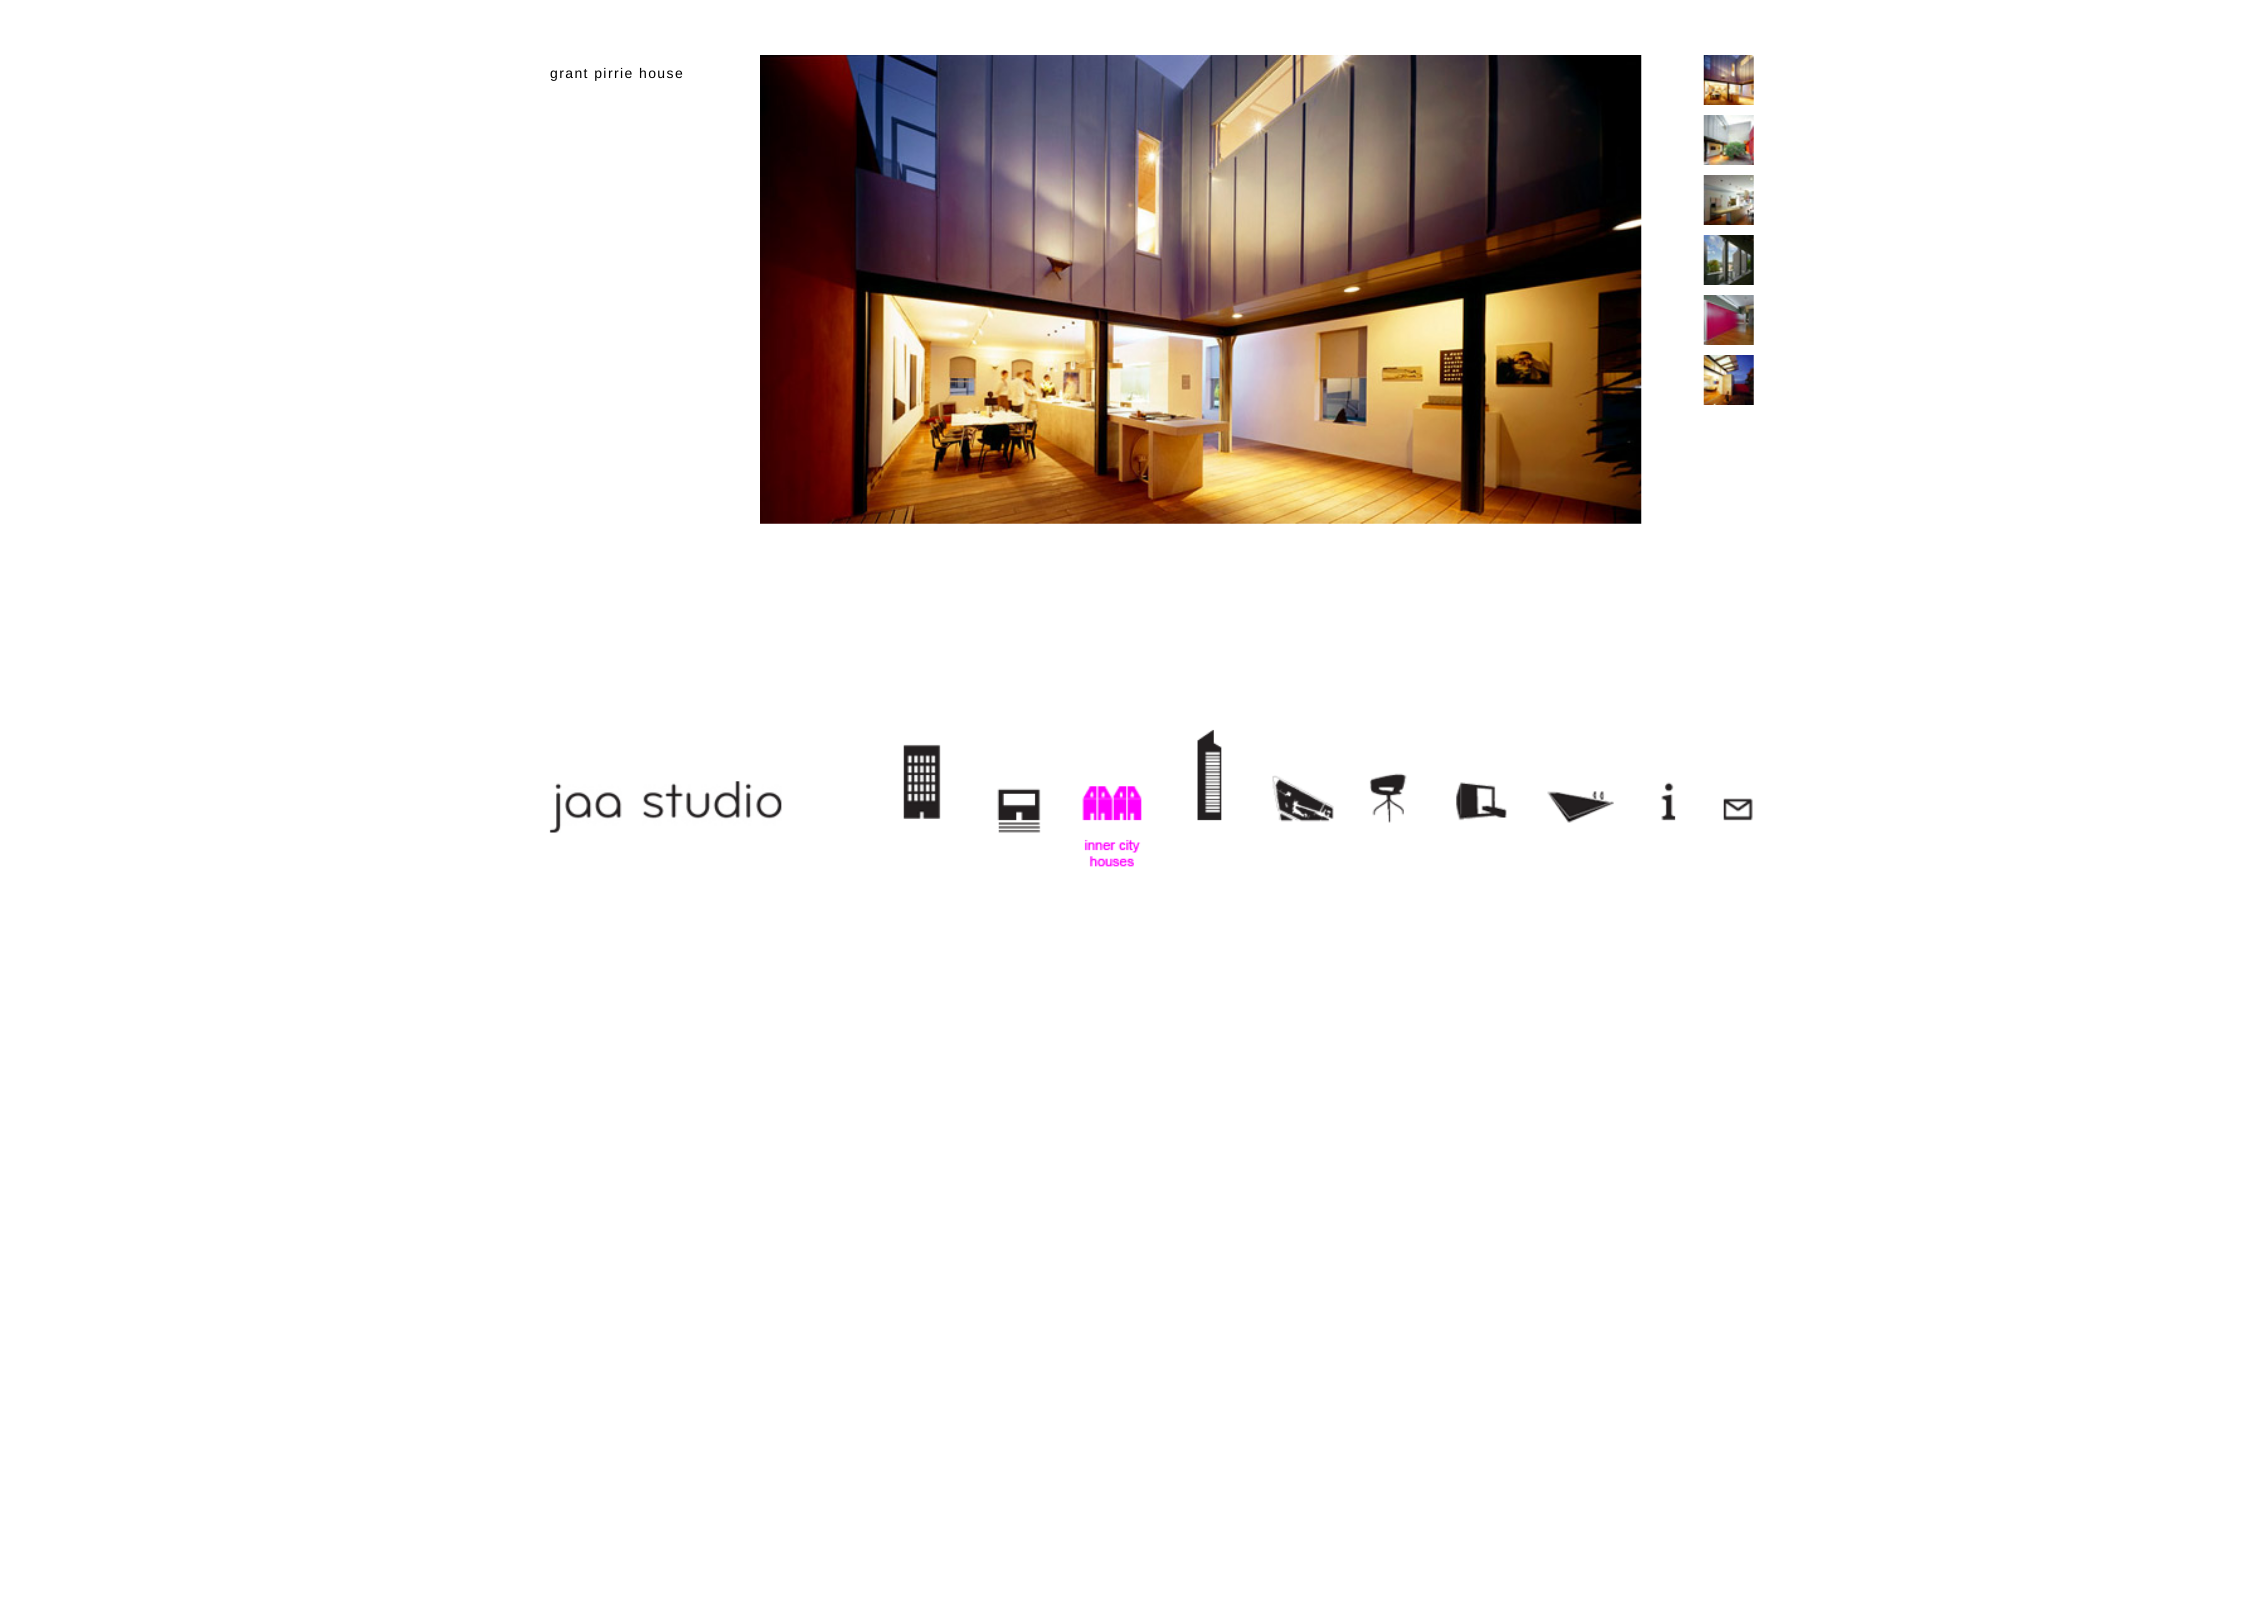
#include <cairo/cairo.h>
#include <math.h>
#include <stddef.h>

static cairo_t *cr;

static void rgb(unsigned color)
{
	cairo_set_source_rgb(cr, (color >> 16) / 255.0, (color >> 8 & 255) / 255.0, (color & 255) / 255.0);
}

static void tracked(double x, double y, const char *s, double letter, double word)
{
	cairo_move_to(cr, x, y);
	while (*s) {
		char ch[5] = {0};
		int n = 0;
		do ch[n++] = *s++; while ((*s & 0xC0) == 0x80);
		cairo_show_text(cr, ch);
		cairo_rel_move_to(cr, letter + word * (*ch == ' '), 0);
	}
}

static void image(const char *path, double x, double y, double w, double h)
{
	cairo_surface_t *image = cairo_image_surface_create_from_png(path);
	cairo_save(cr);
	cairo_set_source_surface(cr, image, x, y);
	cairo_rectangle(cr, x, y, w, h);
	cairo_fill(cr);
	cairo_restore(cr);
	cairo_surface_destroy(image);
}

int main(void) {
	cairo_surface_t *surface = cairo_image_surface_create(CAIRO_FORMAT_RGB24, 2250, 1617);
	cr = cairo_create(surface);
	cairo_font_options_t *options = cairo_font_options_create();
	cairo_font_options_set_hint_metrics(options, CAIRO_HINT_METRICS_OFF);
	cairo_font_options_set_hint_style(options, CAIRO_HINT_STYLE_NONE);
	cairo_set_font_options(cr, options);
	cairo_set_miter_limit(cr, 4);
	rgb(0xffffff);
	cairo_paint(cr);
	image("img/1.png", 760, 55, 882, 469);
	image("img/2.png", 1703, 55, 51, 50);
	image("img/3.png", 1703, 115, 51, 50);
	image("img/4.png", 1703, 175, 51, 50);
	image("img/5.png", 1703, 235, 51, 50);
	image("img/6.png", 1703, 295, 51, 50);
	image("img/7.png", 1703, 355, 51, 50);
	image("img/8.png", 549, 781, 233, 52);
	image("img/9.png", 903, 744, 38, 75);
	image("img/10.png", 997, 788, 44, 45);
	image("img/11.png", 1082, 786, 60, 81);
	image("img/12.png", 1197, 729, 25, 92);
	image("img/13.png", 1272, 775, 62, 47);
	image("img/14.png", 1369, 773, 38, 50);
	image("img/15.png", 1456, 782, 51, 39);
	image("img/16.png", 1547, 791, 67, 32);
	image("img/17.png", 1661, 782, 15, 39);
	image("img/18.png", 1723, 798, 30, 23);
	cairo_select_font_face(cr, "Liberation Sans", CAIRO_FONT_SLANT_NORMAL, CAIRO_FONT_WEIGHT_NORMAL);
	cairo_set_font_size(cr, 14);
	rgb(0x000000);
	tracked(550, 78, "grant pirrie house", 1.4, 0);
	cairo_surface_write_to_png(surface, "page.png");
	cairo_font_options_destroy(options);
	cairo_destroy(cr);
	cairo_surface_destroy(surface);
	return 0;
}
